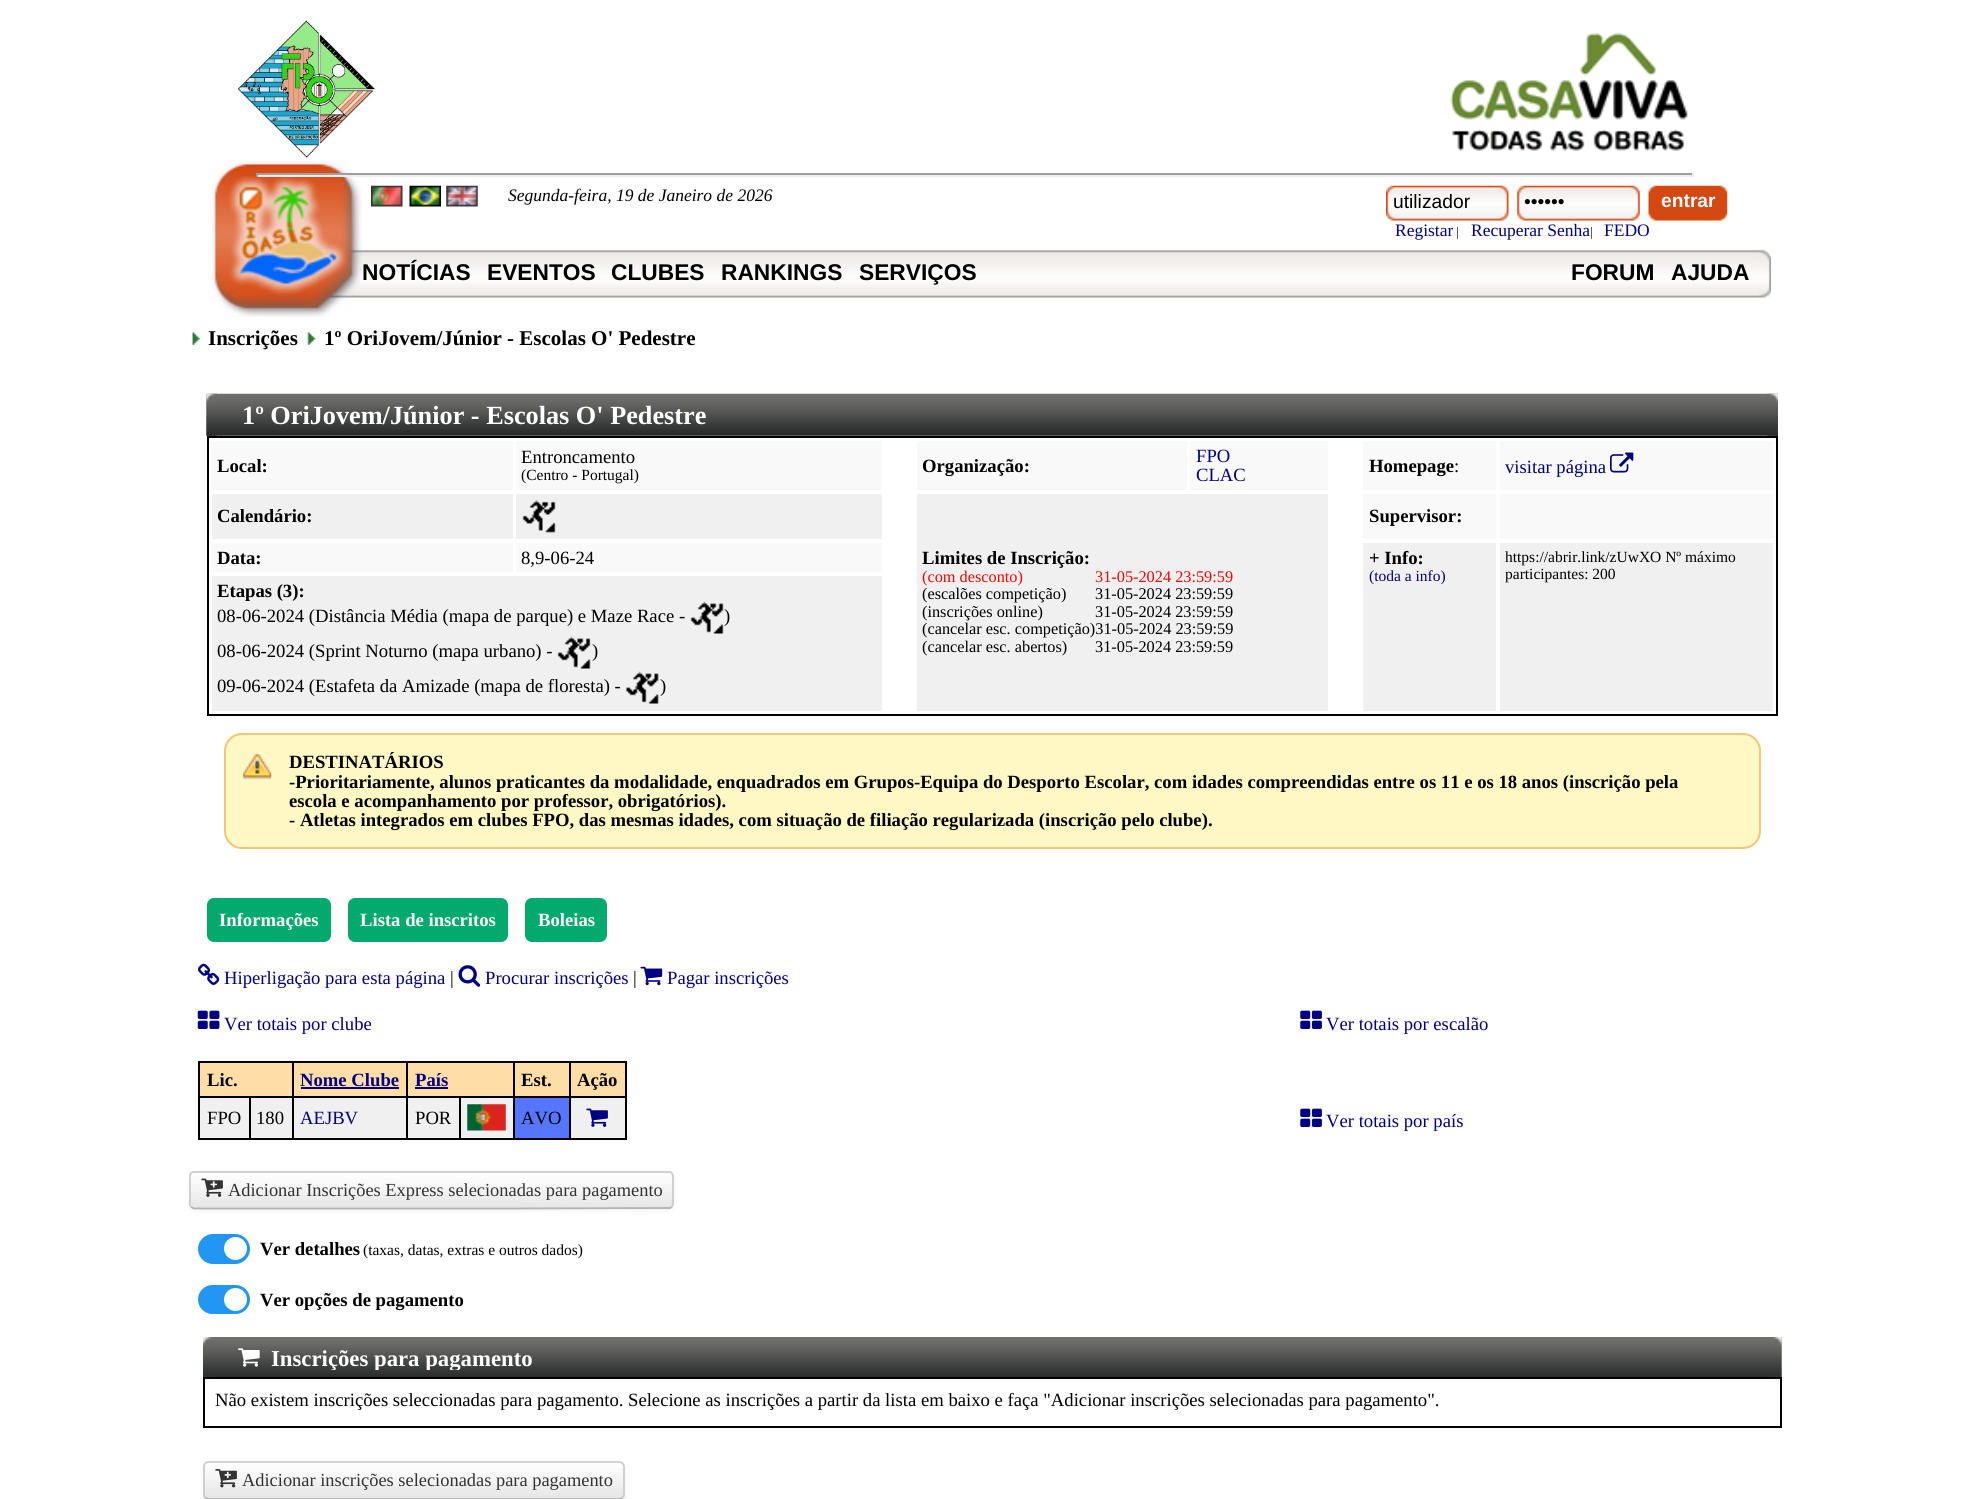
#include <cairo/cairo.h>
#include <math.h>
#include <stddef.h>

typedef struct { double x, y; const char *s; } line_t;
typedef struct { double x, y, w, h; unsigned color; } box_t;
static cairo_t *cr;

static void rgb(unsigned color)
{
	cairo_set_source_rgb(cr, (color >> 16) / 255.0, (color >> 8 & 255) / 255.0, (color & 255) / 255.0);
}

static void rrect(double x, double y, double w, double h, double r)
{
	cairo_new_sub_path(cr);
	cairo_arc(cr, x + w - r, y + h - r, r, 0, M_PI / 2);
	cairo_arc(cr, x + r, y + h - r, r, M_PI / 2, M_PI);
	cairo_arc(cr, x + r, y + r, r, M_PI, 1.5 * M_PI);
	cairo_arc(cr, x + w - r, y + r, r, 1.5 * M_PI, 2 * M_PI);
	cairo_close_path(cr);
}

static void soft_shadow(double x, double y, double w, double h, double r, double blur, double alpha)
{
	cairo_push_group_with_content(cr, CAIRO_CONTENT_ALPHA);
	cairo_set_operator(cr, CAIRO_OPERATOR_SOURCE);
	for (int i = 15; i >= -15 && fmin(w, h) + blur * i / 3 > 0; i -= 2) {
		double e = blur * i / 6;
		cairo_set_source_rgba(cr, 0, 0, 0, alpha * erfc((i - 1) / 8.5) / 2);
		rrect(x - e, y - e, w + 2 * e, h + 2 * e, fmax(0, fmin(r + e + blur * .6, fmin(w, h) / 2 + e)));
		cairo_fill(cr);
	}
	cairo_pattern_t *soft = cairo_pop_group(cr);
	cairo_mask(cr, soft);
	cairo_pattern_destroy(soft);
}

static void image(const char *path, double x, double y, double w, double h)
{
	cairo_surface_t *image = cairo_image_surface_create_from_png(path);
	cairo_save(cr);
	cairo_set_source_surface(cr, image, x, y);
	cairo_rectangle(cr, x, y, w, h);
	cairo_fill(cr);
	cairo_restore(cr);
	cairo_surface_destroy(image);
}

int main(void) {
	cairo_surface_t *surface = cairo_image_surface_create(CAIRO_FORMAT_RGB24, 1983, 1499);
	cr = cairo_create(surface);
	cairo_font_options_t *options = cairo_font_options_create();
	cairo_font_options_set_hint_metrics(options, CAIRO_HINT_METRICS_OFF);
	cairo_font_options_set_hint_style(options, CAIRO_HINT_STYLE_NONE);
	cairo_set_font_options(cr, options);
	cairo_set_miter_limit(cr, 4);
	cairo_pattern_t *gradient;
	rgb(0xffffff);
	cairo_paint(cr);
	image("img/1.png", 237, 19, 139, 140);
	image("img/2.png", 1450, 32, 238, 119);
	image("img/4.png", 196, 159, 166, 158);
	{
		static const box_t items[] = {
			{256, 173, 1438, 2, 0x9f9f9f},
			{1692, 173, 2, 4, 0xeeeeee},
			{256, 175, 1438, 2, 0xeeeeee},
			{256, 173, 2, 4, 0x9f9f9f},
		};
		for (size_t i = 0; i < sizeof items / sizeof *items; i++) {
			rgb(items[i].color);
			cairo_rectangle(cr, items[i].x, items[i].y, items[i].w, items[i].h);
			cairo_fill(cr);
		}
	}
	image("img/3.png", 362, 249, 1397, 49);
	image("img/5.png", 1759, 249, 12, 49);
	image("img/6.png", 371, 185, 32, 22);
	image("img/7.png", 409, 185, 32, 22);
	image("img/8.png", 446, 185, 32, 22);
	image("img/9.png", 1386, 185, 123, 36);
	image("img/10.png", 1517, 185, 123, 36);
	image("img/11.png", 1648, 185, 80, 36);
	image("img/12.png", 192, 332, 8, 13);
	image("img/13.png", 307, 332, 9, 13);
	image("img/14.png", 206, 393, 1572, 43);
	image("img/15.png", 206, 393, 11, 43);
	image("img/16.png", 1767, 393, 11, 43);
	cairo_rectangle(cr, 208, 437, 1569, 278);
	rgb(0x000000);
	cairo_stroke(cr);
	{
		static const box_t items[] = {
			{212, 441, 301, 49, 0xf9f9f9},
			{516, 441, 366, 49, 0xf9f9f9},
			{917, 441, 270, 49, 0xf9f9f9},
			{1190, 441, 138, 49, 0xf9f9f9},
			{1363, 441, 133, 49, 0xf9f9f9},
			{1500, 441, 273, 49, 0xf9f9f9},
		};
		for (size_t i = 0; i < sizeof items / sizeof *items; i++) {
			rgb(items[i].color);
			cairo_rectangle(cr, items[i].x, items[i].y, items[i].w, items[i].h);
			cairo_fill(cr);
		}
	}
	image("img/17.png", 1610, 452, 24, 21);
	rgb(0xf0f0f0);
	cairo_rectangle(cr, 212, 494, 301, 45);
	cairo_fill(cr);
	cairo_rectangle(cr, 516, 494, 366, 45);
	cairo_fill(cr);
	image("img/18.png", 522, 500, 34, 33);
	{
		static const box_t items[] = {
			{1363, 494, 133, 45, 0xf9f9f9},
			{1500, 494, 273, 45, 0xf9f9f9},
			{917, 494, 411, 217, 0xf0f0f0},
			{212, 543, 301, 29, 0xf9f9f9},
			{516, 543, 366, 29, 0xf9f9f9},
			{1363, 543, 133, 168, 0xf0f0f0},
			{1500, 543, 273, 168, 0xf0f0f0},
			{212, 576, 670, 135, 0xf0f0f0},
		};
		for (size_t i = 0; i < sizeof items / sizeof *items; i++) {
			rgb(items[i].color);
			cairo_rectangle(cr, items[i].x, items[i].y, items[i].w, items[i].h);
			cairo_fill(cr);
		}
	}
	image("img/19.png", 690, 601, 34, 33);
	image("img/20.png", 557, 636, 34, 33);
	image("img/21.png", 626, 671, 33, 33);
	rgb(0xfff8c4);
	rrect(224, 733, 1537, 116, 18);
	cairo_fill(cr);
	image("img/22.png", 243, 753, 29, 27);
	rrect(225, 734, 1535, 114, 17);
	rgb(0xf2c779);
	cairo_stroke(cr);
	rgb(0x04aa6d);
	rrect(207, 898, 124, 44, 7);
	cairo_fill(cr);
	rrect(348, 898, 160, 44, 7);
	cairo_fill(cr);
	rrect(525, 898, 82, 44, 7);
	cairo_fill(cr);
	image("img/23.png", 198, 963, 22, 22);
	image("img/24.png", 458, 965, 23, 22);
	image("img/25.png", 640, 966, 23, 20);
	image("img/26.png", 197, 1010, 23, 19);
	{
		static const box_t items[] = {
			{200, 1063, 425, 33, 0xfedea6},
			{569, 1061, 58, 2, 0x000000},
			{569, 1096, 58, 2, 0x000000},
			{625, 1096, 2, 43, 0x000000},
			{569, 1138, 58, 2, 0x000000},
			{569, 1096, 2, 43, 0x000000},
			{513, 1096, 58, 2, 0x000000},
			{569, 1061, 2, 36, 0x000000},
			{513, 1061, 58, 2, 0x000000},
			{513, 1138, 58, 2, 0x000000},
			{513, 1096, 2, 43, 0x000000},
			{459, 1096, 56, 2, 0x000000},
			{513, 1061, 2, 36, 0x000000},
			{406, 1061, 109, 2, 0x000000},
			{459, 1138, 56, 2, 0x000000},
			{459, 1096, 2, 43, 0x000000},
			{406, 1096, 54, 2, 0x000000},
			{406, 1138, 54, 2, 0x000000},
			{406, 1096, 2, 43, 0x000000},
			{292, 1096, 116, 2, 0x000000},
			{406, 1061, 2, 36, 0x000000},
			{292, 1061, 116, 2, 0x000000},
			{292, 1138, 116, 2, 0x000000},
			{292, 1096, 2, 43, 0x000000},
			{249, 1096, 45, 2, 0x000000},
			{292, 1061, 2, 36, 0x000000},
			{198, 1061, 96, 2, 0x000000},
			{249, 1138, 45, 2, 0x000000},
			{249, 1096, 2, 43, 0x000000},
			{198, 1096, 52, 2, 0x000000},
			{198, 1138, 52, 2, 0x000000},
			{198, 1096, 2, 43, 0x000000},
			{198, 1061, 2, 36, 0x000000},
			{301, 1087, 98, 2, 0x000084},
			{415, 1087, 33, 2, 0x000084},
			{625, 1061, 2, 36, 0x000000},
			{200, 1098, 49, 40, 0xf0f0f0},
			{251, 1098, 41, 40, 0xf0f0f0},
			{294, 1098, 112, 40, 0xf0f0f0},
			{408, 1098, 51, 40, 0xf0f0f0},
			{461, 1098, 52, 40, 0xf0f0f0},
		};
		for (size_t i = 0; i < sizeof items / sizeof *items; i++) {
			rgb(items[i].color);
			cairo_rectangle(cr, items[i].x, items[i].y, items[i].w, items[i].h);
			cairo_fill(cr);
		}
	}
	image("img/27.png", 467, 1104, 39, 27);
	rgb(0x5776ff);
	cairo_rectangle(cr, 515, 1098, 54, 40);
	cairo_fill(cr);
	rgb(0xf0f0f0);
	cairo_rectangle(cr, 571, 1098, 54, 40);
	cairo_fill(cr);
	image("img/28.png", 586, 1108, 22, 19);
	image("img/29.png", 1300, 1010, 22, 19);
	image("img/29.png", 1300, 1108, 22, 19);
	rgb(0x000000);
	soft_shadow(189, 1173, 485, 38, 5, 2, 0.05);
	rgb(0xf5f5f5);
	rrect(189, 1171, 485, 38, 5);
	cairo_fill(cr);
	cairo_save(cr);
	rrect(189, 1171, 485, 38, 5);
	cairo_clip(cr);
	gradient = cairo_pattern_create_linear(431, 1173, 431, 1208);
	cairo_pattern_add_color_stop_rgba(gradient, 0, 1, 1, 1, 1);
	cairo_pattern_add_color_stop_rgba(gradient, 1, 0.902, 0.902, 0.902, 1);
	cairo_set_source(cr, gradient);
	cairo_pattern_destroy(gradient);
	cairo_rectangle(cr, 189, 1173, 485, 35);
	cairo_fill(cr);
	cairo_restore(cr);
	cairo_new_path(cr);
	cairo_move_to(cr, 671.5, 1207);
	cairo_line_to(cr, 670, 1208);
	cairo_line_to(cr, 510.5, 1208.5);
	cairo_line_to(cr, 194, 1208.5);
	cairo_line_to(cr, 191, 1207);
	rgb(0xb3b3b3);
	cairo_set_line_width(cr, 1.8);
	cairo_stroke(cr);
	cairo_new_path(cr);
	cairo_move_to(cr, 191, 1207);
	cairo_curve_to(cr, 189, 1205, 190, 1201.5, 190, 1199.5);
	cairo_line_to(cr, 190, 1180.5);
	cairo_curve_to(cr, 190, 1177.5, 189, 1173, 193, 1172);
	cairo_line_to(cr, 670, 1172);
	cairo_curve_to(cr, 673.5, 1173, 673, 1177.5, 673, 1180.5);
	cairo_line_to(cr, 673, 1199.5);
	cairo_curve_to(cr, 673, 1201.5, 673.5, 1205, 671.5, 1207);
	rgb(0xcccccc);
	cairo_stroke(cr);
	image("img/30.png", 201, 1178, 22, 19);
	rgb(0x2196f3);
	rrect(198, 1234, 52, 30, 15);
	cairo_fill(cr);
	rgb(0xffffff);
	cairo_arc(cr, 235.5, 1248.5, 11.5, 0, 2 * M_PI);
	cairo_fill(cr);
	rgb(0x2196f3);
	rrect(198, 1285, 52, 29, 14.5);
	cairo_fill(cr);
	rgb(0xffffff);
	cairo_arc(cr, 235.5, 1299.5, 11.5, 0, 2 * M_PI);
	cairo_fill(cr);
	image("img/31.png", 213, 1337, 1569, 40);
	image("img/32.png", 203, 1337, 11, 40);
	image("img/33.png", 1771, 1337, 11, 40);
	image("img/34.png", 238, 1348, 22, 19);
	cairo_rectangle(cr, 204, 1378, 1577, 49);
	rgb(0x000000);
	cairo_set_line_width(cr, 2);
	cairo_stroke(cr);
	rgb(0x000000);
	soft_shadow(203, 1463, 422, 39, 5, 2, 0.05);
	rgb(0xf5f5f5);
	rrect(203, 1461, 422, 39, 5);
	cairo_fill(cr);
	cairo_save(cr);
	rrect(203, 1461, 422, 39, 5);
	cairo_clip(cr);
	gradient = cairo_pattern_create_linear(414, 1463, 414, 1498);
	cairo_pattern_add_color_stop_rgba(gradient, 0, 1, 1, 1, 1);
	cairo_pattern_add_color_stop_rgba(gradient, 1, 0.902, 0.902, 0.902, 1);
	cairo_set_source(cr, gradient);
	cairo_pattern_destroy(gradient);
	cairo_rectangle(cr, 203, 1463, 422, 35);
	cairo_fill(cr);
	cairo_restore(cr);
	cairo_new_path(cr);
	cairo_move_to(cr, 622.5, 1497.5);
	cairo_line_to(cr, 620.5, 1499);
	cairo_line_to(cr, 482.5, 1499);
	cairo_line_to(cr, 208, 1499);
	cairo_line_to(cr, 205, 1497.5);
	rgb(0xb3b3b3);
	cairo_set_line_width(cr, 1.8);
	cairo_stroke(cr);
	cairo_new_path(cr);
	cairo_move_to(cr, 205, 1497.5);
	cairo_curve_to(cr, 204.5, 1497, 204, 1495.5, 204, 1494.5);
	cairo_line_to(cr, 204, 1466.5);
	cairo_curve_to(cr, 204, 1465.5, 204.5, 1464, 205, 1463.5);
	cairo_curve_to(cr, 206, 1462.5, 207, 1462, 208, 1462);
	cairo_line_to(cr, 619.5, 1462);
	cairo_curve_to(cr, 620.5, 1462, 622, 1462.5, 622.5, 1463.5);
	cairo_curve_to(cr, 623.5, 1464, 624, 1465.5, 624, 1466.5);
	cairo_line_to(cr, 624, 1494.5);
	cairo_curve_to(cr, 624, 1495.5, 623.5, 1497, 622.5, 1497.5);
	rgb(0xcccccc);
	cairo_stroke(cr);
	image("img/35.png", 215, 1469, 22, 19);
	cairo_select_font_face(cr, "Liberation Serif", CAIRO_FONT_SLANT_ITALIC, CAIRO_FONT_WEIGHT_NORMAL);
	cairo_set_font_size(cr, 17.5);
	rgb(0x000000);
	cairo_move_to(cr, 508, 201);
	cairo_show_text(cr, "Segunda-feira, 19 de Janeiro de 2026");
	cairo_select_font_face(cr, "Liberation Sans", CAIRO_FONT_SLANT_NORMAL, CAIRO_FONT_WEIGHT_NORMAL);
	cairo_set_font_size(cr, 19.25);
	cairo_move_to(cr, 1393, 208);
	cairo_show_text(cr, "utilizador");
	cairo_move_to(cr, 1524, 208);
	cairo_show_text(cr, "••••••");
	cairo_select_font_face(cr, "Liberation Sans", CAIRO_FONT_SLANT_NORMAL, CAIRO_FONT_WEIGHT_BOLD);
	rgb(0xffffff);
	cairo_move_to(cr, 1661, 207);
	cairo_show_text(cr, "entrar");
	cairo_select_font_face(cr, "Liberation Serif", CAIRO_FONT_SLANT_NORMAL, CAIRO_FONT_WEIGHT_NORMAL);
	cairo_set_font_size(cr, 17.5);
	rgb(0x000084);
	cairo_move_to(cr, 1395, 236);
	cairo_show_text(cr, "Registar");
	cairo_set_font_size(cr, 13);
	rgb(0x000000);
	cairo_move_to(cr, 1456, 236);
	cairo_show_text(cr, "|");
	cairo_set_font_size(cr, 17.5);
	rgb(0x000084);
	cairo_move_to(cr, 1471, 236);
	cairo_show_text(cr, "Recuperar Senha");
	cairo_set_font_size(cr, 13);
	rgb(0x000000);
	cairo_move_to(cr, 1590, 236);
	cairo_show_text(cr, "|");
	cairo_set_font_size(cr, 17.5);
	rgb(0x000084);
	cairo_move_to(cr, 1604, 236);
	cairo_show_text(cr, "FEDO");
	cairo_select_font_face(cr, "Liberation Sans", CAIRO_FONT_SLANT_NORMAL, CAIRO_FONT_WEIGHT_BOLD);
	cairo_set_font_size(cr, 22.75);
	rgb(0x000000);
	{
		static const line_t items[] = {
			{362, 280, "NOTÍCIAS"},
			{487, 280, "EVENTOS"},
			{611, 280, "CLUBES"},
			{721, 280, "RANKINGS"},
			{859, 280, "SERVIÇOS"},
			{1571, 280, "FORUM"},
			{1671, 280, "AJUDA"},
		};
		for (size_t i = 0; i < sizeof items / sizeof *items; i++) {
			cairo_move_to(cr, items[i].x, items[i].y);
			cairo_show_text(cr, items[i].s);
		}
	}
	cairo_select_font_face(cr, "Liberation Serif", CAIRO_FONT_SLANT_NORMAL, CAIRO_FONT_WEIGHT_BOLD);
	cairo_set_font_size(cr, 21);
	cairo_move_to(cr, 208, 345);
	cairo_show_text(cr, "Inscrições");
	cairo_move_to(cr, 324, 345);
	cairo_show_text(cr, "1º OriJovem/Júnior - Escolas O' Pedestre");
	cairo_set_font_size(cr, 26.25);
	rgb(0xffffff);
	cairo_move_to(cr, 242, 424);
	cairo_show_text(cr, "1º OriJovem/Júnior - Escolas O' Pedestre");
	cairo_set_font_size(cr, 18.67);
	rgb(0x000000);
	cairo_move_to(cr, 217, 472);
	cairo_show_text(cr, "Local:");
	cairo_select_font_face(cr, "Liberation Serif", CAIRO_FONT_SLANT_NORMAL, CAIRO_FONT_WEIGHT_NORMAL);
	cairo_move_to(cr, 521, 463);
	cairo_show_text(cr, "Entroncamento");
	cairo_set_font_size(cr, 15.5);
	cairo_move_to(cr, 521, 480);
	cairo_show_text(cr, "(Centro - Portugal)");
	cairo_select_font_face(cr, "Liberation Serif", CAIRO_FONT_SLANT_NORMAL, CAIRO_FONT_WEIGHT_BOLD);
	cairo_set_font_size(cr, 18.67);
	cairo_move_to(cr, 922, 472);
	cairo_show_text(cr, "Organização:");
	cairo_select_font_face(cr, "Liberation Serif", CAIRO_FONT_SLANT_NORMAL, CAIRO_FONT_WEIGHT_NORMAL);
	rgb(0x000084);
	cairo_move_to(cr, 1196, 462);
	cairo_show_text(cr, "FPO");
	cairo_move_to(cr, 1196, 481);
	cairo_show_text(cr, "CLAC");
	cairo_select_font_face(cr, "Liberation Serif", CAIRO_FONT_SLANT_NORMAL, CAIRO_FONT_WEIGHT_BOLD);
	rgb(0x000000);
	cairo_move_to(cr, 1369, 472);
	cairo_show_text(cr, "Homepage");
	cairo_select_font_face(cr, "Liberation Serif", CAIRO_FONT_SLANT_NORMAL, CAIRO_FONT_WEIGHT_NORMAL);
	cairo_move_to(cr, 1454, 472);
	cairo_show_text(cr, ":");
	rgb(0x000084);
	cairo_move_to(cr, 1505, 473);
	cairo_show_text(cr, "visitar página");
	cairo_select_font_face(cr, "Liberation Serif", CAIRO_FONT_SLANT_NORMAL, CAIRO_FONT_WEIGHT_BOLD);
	rgb(0x000000);
	{
		static const line_t items[] = {
			{217, 522, "Calendário:"},
			{1369, 522, "Supervisor:"},
			{922, 564, "Limites de Inscrição:"},
		};
		for (size_t i = 0; i < sizeof items / sizeof *items; i++) {
			cairo_move_to(cr, items[i].x, items[i].y);
			cairo_show_text(cr, items[i].s);
		}
	}
	cairo_select_font_face(cr, "Liberation Serif", CAIRO_FONT_SLANT_NORMAL, CAIRO_FONT_WEIGHT_NORMAL);
	cairo_set_font_size(cr, 16.3);
	rgb(0xff0000);
	cairo_move_to(cr, 922, 582);
	cairo_show_text(cr, "(com desconto)");
	cairo_move_to(cr, 1095, 582);
	cairo_show_text(cr, "31-05-2024 23:59:59");
	rgb(0x000000);
	{
		static const line_t items[] = {
			{922, 599, "(escalões competição)"},
			{1095, 599, "31-05-2024 23:59:59"},
			{922, 617, "(inscrições online)"},
			{1095, 617, "31-05-2024 23:59:59"},
			{922, 634, "(cancelar esc. competição)31-05-2024 23:59:59"},
			{922, 652, "(cancelar esc. abertos)"},
			{1095, 652, "31-05-2024 23:59:59"},
		};
		for (size_t i = 0; i < sizeof items / sizeof *items; i++) {
			cairo_move_to(cr, items[i].x, items[i].y);
			cairo_show_text(cr, items[i].s);
		}
	}
	cairo_select_font_face(cr, "Liberation Serif", CAIRO_FONT_SLANT_NORMAL, CAIRO_FONT_WEIGHT_BOLD);
	cairo_set_font_size(cr, 18.67);
	cairo_move_to(cr, 217, 564);
	cairo_show_text(cr, "Data:");
	cairo_select_font_face(cr, "Liberation Serif", CAIRO_FONT_SLANT_NORMAL, CAIRO_FONT_WEIGHT_NORMAL);
	cairo_move_to(cr, 521, 564);
	cairo_show_text(cr, "8,9-06-24");
	cairo_select_font_face(cr, "Liberation Serif", CAIRO_FONT_SLANT_NORMAL, CAIRO_FONT_WEIGHT_BOLD);
	cairo_move_to(cr, 1369, 564);
	cairo_show_text(cr, "+ Info:");
	cairo_select_font_face(cr, "Liberation Serif", CAIRO_FONT_SLANT_NORMAL, CAIRO_FONT_WEIGHT_NORMAL);
	cairo_set_font_size(cr, 15.5);
	rgb(0x000084);
	cairo_move_to(cr, 1369, 581);
	cairo_show_text(cr, "(toda a info)");
	rgb(0x000000);
	cairo_move_to(cr, 1505, 562);
	cairo_show_text(cr, "https://abrir.link/zUwXO Nº máximo");
	cairo_move_to(cr, 1505, 579);
	cairo_show_text(cr, "participantes: 200");
	cairo_select_font_face(cr, "Liberation Serif", CAIRO_FONT_SLANT_NORMAL, CAIRO_FONT_WEIGHT_BOLD);
	cairo_set_font_size(cr, 18.67);
	cairo_move_to(cr, 217, 597);
	cairo_show_text(cr, "Etapas (3):");
	cairo_select_font_face(cr, "Liberation Serif", CAIRO_FONT_SLANT_NORMAL, CAIRO_FONT_WEIGHT_NORMAL);
	{
		static const line_t items[] = {
			{217, 622, "08-06-2024 (Distância Média (mapa de parque) e Maze Race -"},
			{724, 622, ")"},
			{217, 657, "08-06-2024 (Sprint Noturno (mapa urbano) -"},
			{592, 657, ")"},
			{217, 692, "09-06-2024 (Estafeta da Amizade (mapa de floresta) -"},
			{660, 692, ")"},
		};
		for (size_t i = 0; i < sizeof items / sizeof *items; i++) {
			cairo_move_to(cr, items[i].x, items[i].y);
			cairo_show_text(cr, items[i].s);
		}
	}
	cairo_select_font_face(cr, "Liberation Serif", CAIRO_FONT_SLANT_NORMAL, CAIRO_FONT_WEIGHT_BOLD);
	{
		static const line_t items[] = {
			{289, 768, "DESTINATÁRIOS"},
			{289, 788, "-Prioritariamente, alunos praticantes da modalidade, enquadrados em Grupos-Equipa do Desporto Escolar, com idades compreendidas entre os 11 e os 18 anos (inscrição pela"},
			{289, 807, "escola e acompanhamento por professor, obrigatórios)."},
			{289, 826, "- Atletas integrados em clubes FPO, das mesmas idades, com situação de filiação regularizada (inscrição pelo clube)."},
		};
		for (size_t i = 0; i < sizeof items / sizeof *items; i++) {
			cairo_move_to(cr, items[i].x, items[i].y);
			cairo_show_text(cr, items[i].s);
		}
	}
	rgb(0xffffff);
	{
		static const line_t items[] = {
			{219, 926, "Informações"},
			{360, 926, "Lista de inscritos"},
			{538, 926, "Boleias"},
		};
		for (size_t i = 0; i < sizeof items / sizeof *items; i++) {
			cairo_move_to(cr, items[i].x, items[i].y);
			cairo_show_text(cr, items[i].s);
		}
	}
	cairo_select_font_face(cr, "Liberation Serif", CAIRO_FONT_SLANT_NORMAL, CAIRO_FONT_WEIGHT_NORMAL);
	rgb(0x000084);
	cairo_move_to(cr, 224, 984);
	cairo_show_text(cr, "Hiperligação para esta página");
	rgb(0x000000);
	cairo_move_to(cr, 450, 984);
	cairo_show_text(cr, "|");
	rgb(0x000084);
	cairo_move_to(cr, 485, 984);
	cairo_show_text(cr, "Procurar inscrições");
	rgb(0x000000);
	cairo_move_to(cr, 633, 984);
	cairo_show_text(cr, "|");
	rgb(0x000084);
	cairo_move_to(cr, 667, 984);
	cairo_show_text(cr, "Pagar inscrições");
	cairo_move_to(cr, 224, 1030);
	cairo_show_text(cr, "Ver totais por clube");
	cairo_select_font_face(cr, "Liberation Serif", CAIRO_FONT_SLANT_NORMAL, CAIRO_FONT_WEIGHT_BOLD);
	rgb(0x000000);
	cairo_move_to(cr, 207, 1086);
	cairo_show_text(cr, "Lic.");
	rgb(0x000084);
	cairo_move_to(cr, 300, 1086);
	cairo_show_text(cr, "Nome Clube");
	cairo_move_to(cr, 415, 1086);
	cairo_show_text(cr, "País");
	rgb(0x000000);
	cairo_move_to(cr, 521, 1086);
	cairo_show_text(cr, "Est.");
	cairo_move_to(cr, 577, 1086);
	cairo_show_text(cr, "Ação");
	cairo_select_font_face(cr, "Liberation Serif", CAIRO_FONT_SLANT_NORMAL, CAIRO_FONT_WEIGHT_NORMAL);
	cairo_move_to(cr, 207, 1124);
	cairo_show_text(cr, "FPO");
	cairo_move_to(cr, 256, 1124);
	cairo_show_text(cr, "180");
	rgb(0x000084);
	cairo_move_to(cr, 300, 1124);
	cairo_show_text(cr, "AEJBV");
	rgb(0x000000);
	cairo_move_to(cr, 415, 1124);
	cairo_show_text(cr, "POR");
	cairo_move_to(cr, 521, 1124);
	cairo_show_text(cr, "AVO");
	rgb(0x000084);
	cairo_move_to(cr, 1326, 1030);
	cairo_show_text(cr, "Ver totais por escalão");
	cairo_move_to(cr, 1326, 1127);
	cairo_show_text(cr, "Ver totais por país");
	cairo_set_font_size(cr, 18.4);
	rgb(0x333333);
	cairo_move_to(cr, 228, 1196);
	cairo_show_text(cr, "Adicionar Inscrições Express selecionadas para pagamento");
	cairo_select_font_face(cr, "Liberation Serif", CAIRO_FONT_SLANT_NORMAL, CAIRO_FONT_WEIGHT_BOLD);
	cairo_set_font_size(cr, 18.67);
	rgb(0x000000);
	cairo_move_to(cr, 260, 1255);
	cairo_show_text(cr, "Ver detalhes");
	cairo_select_font_face(cr, "Liberation Serif", CAIRO_FONT_SLANT_NORMAL, CAIRO_FONT_WEIGHT_NORMAL);
	cairo_set_font_size(cr, 15.5);
	cairo_move_to(cr, 363, 1255);
	cairo_show_text(cr, "(taxas, datas, extras e outros dados)");
	cairo_select_font_face(cr, "Liberation Serif", CAIRO_FONT_SLANT_NORMAL, CAIRO_FONT_WEIGHT_BOLD);
	cairo_set_font_size(cr, 18.67);
	cairo_move_to(cr, 260, 1306);
	cairo_show_text(cr, "Ver opções de pagamento");
	cairo_save(cr);
	cairo_rectangle(cr, 238, 1344, 1528, 26);
	cairo_clip(cr);
	cairo_set_font_size(cr, 22.75);
	rgb(0xffffff);
	cairo_move_to(cr, 271, 1366);
	cairo_show_text(cr, "Inscrições para pagamento");
	cairo_restore(cr);
	cairo_select_font_face(cr, "Liberation Serif", CAIRO_FONT_SLANT_NORMAL, CAIRO_FONT_WEIGHT_NORMAL);
	cairo_move_to(cr, 215, 1406);
	cairo_show_text(cr, "Não existem inscrições seleccionadas para pagamento.");
	cairo_move_to(cr, 628, 1406);
	cairo_show_text(cr, "Selecione as inscrições a partir da lista em baixo e faça \"Adicionar inscrições selecionadas para pagamento\".");
	cairo_set_font_size(cr, 18.4);
	rgb(0x333333);
	cairo_move_to(cr, 242, 1486);
	cairo_show_text(cr, "Adicionar inscrições selecionadas para pagamento");
	cairo_surface_write_to_png(surface, "page.png");
	cairo_font_options_destroy(options);
	cairo_destroy(cr);
	cairo_surface_destroy(surface);
	return 0;
}
